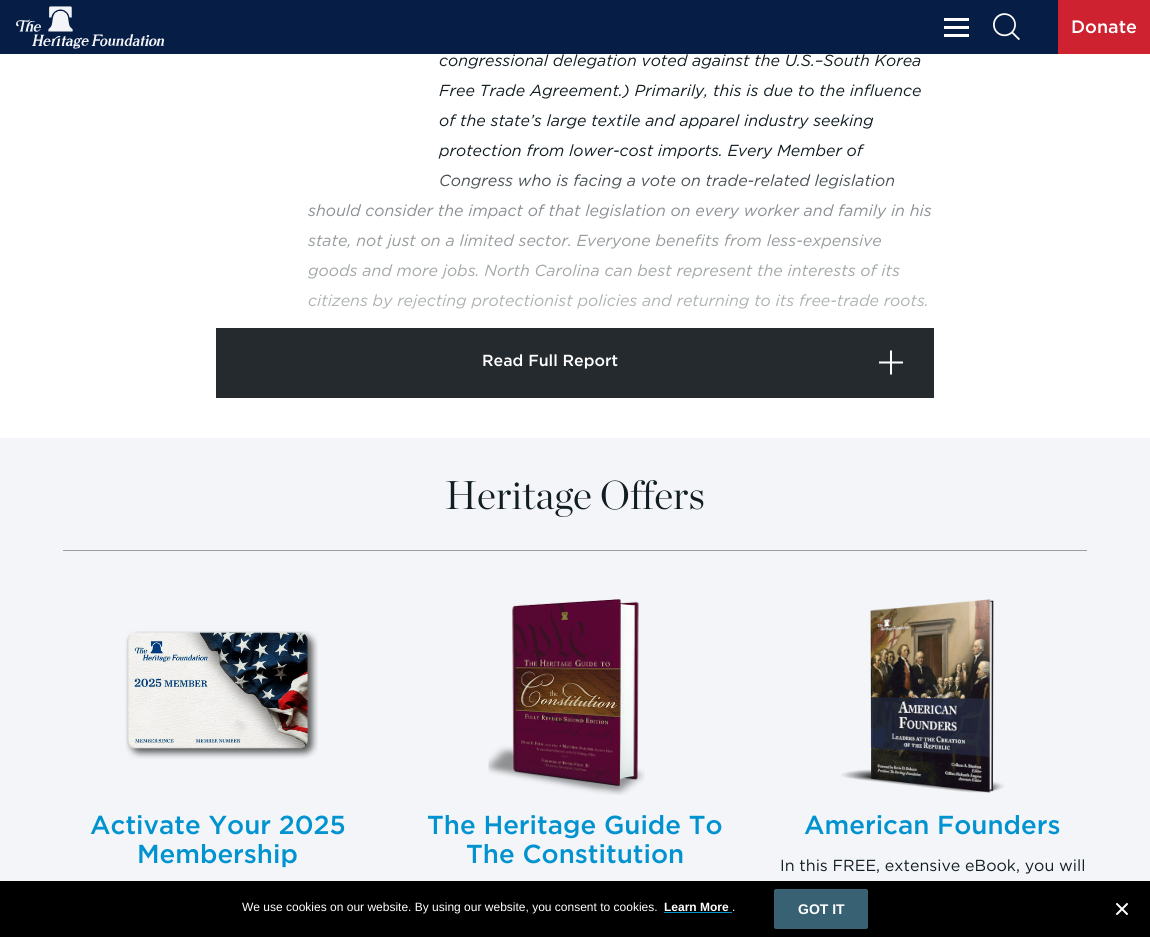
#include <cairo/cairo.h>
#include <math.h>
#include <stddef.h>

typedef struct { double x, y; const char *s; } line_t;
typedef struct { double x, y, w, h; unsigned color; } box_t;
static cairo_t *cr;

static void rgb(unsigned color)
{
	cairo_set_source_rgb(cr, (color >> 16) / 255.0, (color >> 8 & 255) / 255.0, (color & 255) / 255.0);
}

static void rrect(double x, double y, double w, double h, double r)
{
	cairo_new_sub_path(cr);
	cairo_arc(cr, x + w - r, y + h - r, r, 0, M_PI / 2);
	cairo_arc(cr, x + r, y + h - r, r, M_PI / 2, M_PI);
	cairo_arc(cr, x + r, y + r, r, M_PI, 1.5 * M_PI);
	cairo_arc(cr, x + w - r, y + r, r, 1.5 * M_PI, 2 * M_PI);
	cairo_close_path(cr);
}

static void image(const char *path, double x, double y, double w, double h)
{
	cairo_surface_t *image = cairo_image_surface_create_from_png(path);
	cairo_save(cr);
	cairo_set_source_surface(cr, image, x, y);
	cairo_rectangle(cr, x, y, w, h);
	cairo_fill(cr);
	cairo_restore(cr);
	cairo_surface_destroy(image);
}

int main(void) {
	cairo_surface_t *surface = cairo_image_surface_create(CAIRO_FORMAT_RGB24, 1150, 937);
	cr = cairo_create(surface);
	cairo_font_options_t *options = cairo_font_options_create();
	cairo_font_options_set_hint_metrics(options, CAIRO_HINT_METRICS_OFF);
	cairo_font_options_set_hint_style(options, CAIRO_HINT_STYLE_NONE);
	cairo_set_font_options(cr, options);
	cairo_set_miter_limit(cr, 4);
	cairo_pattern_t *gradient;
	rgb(0xffffff);
	cairo_paint(cr);
	rgb(0x061d46);
	cairo_rectangle(cr, 0, 0, 1058, 54);
	cairo_fill(cr);
	image("img/1.png", 16, 6, 148, 43);
	{
		static const box_t items[] = {
			{944, 18, 25, 3, 0xffffff},
			{944, 26, 25, 3, 0xffffff},
			{944, 34, 25, 3, 0xffffff},
		};
		for (size_t i = 0; i < sizeof items / sizeof *items; i++) {
			rgb(items[i].color);
			cairo_rectangle(cr, items[i].x, items[i].y, items[i].w, items[i].h);
			cairo_fill(cr);
		}
	}
	image("img/2.png", 993, 13, 27, 28);
	rgb(0xce2231);
	cairo_rectangle(cr, 1058, 0, 92, 54);
	cairo_fill(cr);
	rgb(0x252a2f);
	cairo_rectangle(cr, 216, 328, 718, 70);
	cairo_fill(cr);
	image("img/3.png", 879, 350, 24, 25);
	rgb(0xf3f5f8);
	cairo_rectangle(cr, 0, 438, 1150, 443);
	cairo_fill(cr);
	rgb(0x999fa2);
	cairo_rectangle(cr, 63, 550, 1024, 1);
	cairo_fill(cr);
	image("img/4.png", 125, 631, 193, 128);
	image("img/5.png", 488, 599, 157, 196);
	image("img/6.png", 841, 599, 164, 194);
	rgb(0x000000);
	cairo_rectangle(cr, 0, 881, 1150, 56);
	cairo_fill(cr);
	rgb(0x0093d0);
	cairo_rectangle(cr, 664, 912, 68, 1);
	cairo_fill(cr);
	rgb(0x386274);
	rrect(774, 889, 94, 40, 2);
	cairo_fill(cr);
	image("img/7.png", 1116, 903, 12, 12);
	cairo_select_font_face(cr, "Gotham Medium", CAIRO_FONT_SLANT_NORMAL, CAIRO_FONT_WEIGHT_NORMAL);
	cairo_set_font_size(cr, 18);
	rgb(0xffffff);
	cairo_move_to(cr, 1071, 33);
	cairo_show_text(cr, "Donate");
	cairo_select_font_face(cr, "Gotham", CAIRO_FONT_SLANT_ITALIC, CAIRO_FONT_WEIGHT_NORMAL);
	cairo_set_font_size(cr, 16);
	rgb(0x111d22);
	{
		static const line_t items[] = {
			{439, 66, "congressional delegation voted against the U.S.–South Korea"},
			{439, 96, "Free Trade Agreement.) Primarily, this is due to the influence"},
			{439, 126, "of the state’s large textile and apparel industry seeking"},
			{439, 156, "protection from lower-cost imports. Every Member of"},
			{439, 186, "Congress who is facing a vote on trade-related legislation"},
			{308, 216, "should consider the impact of that legislation on every worker and family in his"},
			{308, 246, "state, not just on a limited sector. Everyone benefits from less-expensive"},
			{308, 276, "goods and more jobs. North Carolina can best represent the interests of its"},
			{308, 306, "citizens by rejecting protectionist policies and returning to its free-trade roots."},
		};
		for (size_t i = 0; i < sizeof items / sizeof *items; i++) {
			cairo_move_to(cr, items[i].x, items[i].y);
			cairo_show_text(cr, items[i].s);
		}
	}
	gradient = cairo_pattern_create_linear(575, 158, 575, 328);
	cairo_pattern_add_color_stop_rgba(gradient, 0, 1, 1, 1, 0);
	cairo_pattern_add_color_stop_rgba(gradient, 0.3, 1, 1, 1, 0.5);
	cairo_pattern_add_color_stop_rgba(gradient, 1, 1, 1, 1, 0.7);
	cairo_set_source(cr, gradient);
	cairo_pattern_destroy(gradient);
	cairo_rectangle(cr, 307, 174, 625, 135);
	cairo_fill(cr);
	cairo_select_font_face(cr, "Gotham Medium", CAIRO_FONT_SLANT_NORMAL, CAIRO_FONT_WEIGHT_NORMAL);
	rgb(0xffffff);
	cairo_move_to(cr, 482, 366);
	cairo_show_text(cr, "Read Full Report");
	cairo_select_font_face(cr, "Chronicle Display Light", CAIRO_FONT_SLANT_NORMAL, CAIRO_FONT_WEIGHT_NORMAL);
	cairo_set_font_size(cr, 40);
	rgb(0x111d22);
	cairo_move_to(cr, 445, 509);
	cairo_show_text(cr, "Heritage Offers");
	cairo_select_font_face(cr, "Gotham Medium", CAIRO_FONT_SLANT_NORMAL, CAIRO_FONT_WEIGHT_NORMAL);
	cairo_set_font_size(cr, 26);
	rgb(0x0093d0);
	{
		static const line_t items[] = {
			{90, 834, "Activate Your 2025"},
			{137, 863, "Membership"},
			{427, 834, "The Heritage Guide To"},
			{466, 863, "The Constitution"},
			{804, 834, "American Founders"},
		};
		for (size_t i = 0; i < sizeof items / sizeof *items; i++) {
			cairo_move_to(cr, items[i].x, items[i].y);
			cairo_show_text(cr, items[i].s);
		}
	}
	cairo_select_font_face(cr, "Gotham", CAIRO_FONT_SLANT_NORMAL, CAIRO_FONT_WEIGHT_NORMAL);
	cairo_set_font_size(cr, 16);
	rgb(0x111d22);
	cairo_move_to(cr, 780, 871);
	cairo_show_text(cr, "In this FREE, extensive eBook, you will");
	cairo_select_font_face(cr, "Liberation Sans", CAIRO_FONT_SLANT_NORMAL, CAIRO_FONT_WEIGHT_NORMAL);
	cairo_set_font_size(cr, 12);
	rgb(0xffffff);
	cairo_move_to(cr, 242, 911);
	cairo_show_text(cr, "We use cookies on our website. By using our website, you consent to cookies.");
	cairo_select_font_face(cr, "Liberation Sans", CAIRO_FONT_SLANT_NORMAL, CAIRO_FONT_WEIGHT_BOLD);
	cairo_move_to(cr, 664, 911);
	cairo_show_text(cr, "Learn More");
	cairo_select_font_face(cr, "Liberation Sans", CAIRO_FONT_SLANT_NORMAL, CAIRO_FONT_WEIGHT_NORMAL);
	cairo_move_to(cr, 732, 911);
	cairo_show_text(cr, ".");
	cairo_select_font_face(cr, "Liberation Sans", CAIRO_FONT_SLANT_NORMAL, CAIRO_FONT_WEIGHT_BOLD);
	cairo_set_font_size(cr, 14);
	cairo_move_to(cr, 798, 914);
	cairo_show_text(cr, "GOT IT");
	cairo_surface_write_to_png(surface, "page.png");
	cairo_font_options_destroy(options);
	cairo_destroy(cr);
	cairo_surface_destroy(surface);
	return 0;
}
